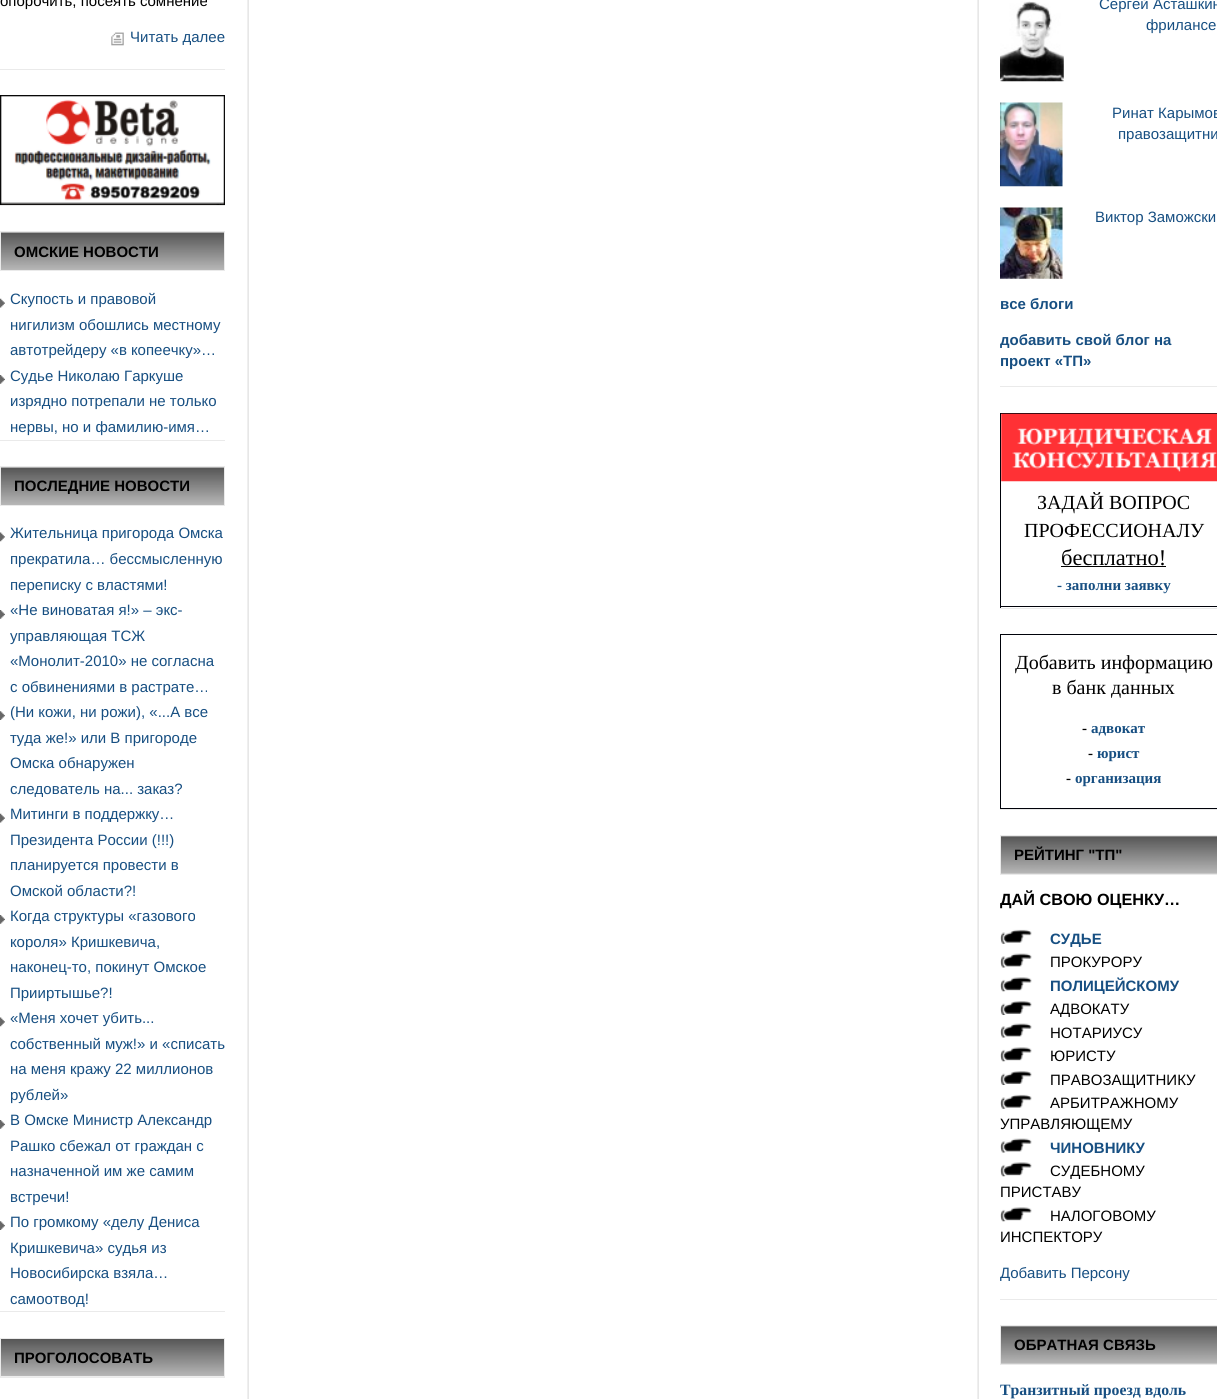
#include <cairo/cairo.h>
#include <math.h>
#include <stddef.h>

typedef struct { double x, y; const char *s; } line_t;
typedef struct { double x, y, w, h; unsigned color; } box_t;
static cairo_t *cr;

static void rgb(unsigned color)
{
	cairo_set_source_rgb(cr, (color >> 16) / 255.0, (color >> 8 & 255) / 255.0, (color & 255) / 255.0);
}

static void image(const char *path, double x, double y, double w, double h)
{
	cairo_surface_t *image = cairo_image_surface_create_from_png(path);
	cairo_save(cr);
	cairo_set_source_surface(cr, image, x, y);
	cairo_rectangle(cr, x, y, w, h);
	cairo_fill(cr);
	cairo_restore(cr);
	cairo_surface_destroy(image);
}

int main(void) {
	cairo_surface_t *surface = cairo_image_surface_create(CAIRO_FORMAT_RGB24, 1217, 1399);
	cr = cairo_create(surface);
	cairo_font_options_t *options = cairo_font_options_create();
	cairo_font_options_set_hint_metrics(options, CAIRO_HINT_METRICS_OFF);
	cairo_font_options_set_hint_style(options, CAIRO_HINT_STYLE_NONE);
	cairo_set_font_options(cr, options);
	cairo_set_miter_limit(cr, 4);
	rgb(0xffffff);
	cairo_paint(cr);
	image("img/1.png", 977, 0, 2, 1399);
	image("img/1.png", 247, 0, 2, 1399);
	rgb(0xeaeaea);
	cairo_rectangle(cr, 0, 69, 225, 1);
	cairo_fill(cr);
	image("img/2.png", 111, 32, 13, 14);
	cairo_rectangle(cr, 0, 205, 225, 1);
	cairo_fill(cr);
	image("img/3.png", 0, 95, 225, 110);
	cairo_rectangle(cr, 0, 440, 225, 1);
	cairo_fill(cr);
	image("img/4.png", 1, 232, 223, 38);
	cairo_rectangle(cr, 0.5, 231.5, 224, 39);
	cairo_set_line_width(cr, 1);
	cairo_stroke(cr);
	image("img/5.png", 0, 298, 5, 10);
	image("img/6.png", 0, 375, 5, 9);
	cairo_rectangle(cr, 0, 1311, 225, 1);
	cairo_fill(cr);
	image("img/7.png", 1, 467, 223, 38);
	cairo_rectangle(cr, 0.5, 466.5, 224, 39);
	cairo_stroke(cr);
	image("img/8.png", 0, 532, 5, 10);
	image("img/6.png", 0, 610, 5, 9);
	image("img/9.png", 0, 711, 5, 9);
	image("img/5.png", 0, 813, 5, 10);
	image("img/6.png", 0, 915, 5, 9);
	image("img/8.png", 0, 1017, 5, 10);
	image("img/10.png", 0, 1120, 5, 9);
	image("img/9.png", 0, 1221, 5, 9);
	image("img/11.png", 1, 1339, 223, 38);
	cairo_rectangle(cr, 0.5, 1338.5, 224, 39);
	cairo_stroke(cr);
	cairo_rectangle(cr, 1000, 386, 217, 1);
	cairo_fill(cr);
	image("img/12.png", 1000, 1, 64, 81);
	image("img/13.png", 1000, 102, 63, 85);
	image("img/14.png", 1000, 207, 63, 72);
	{
		static const box_t items[] = {
			{1000, 608, 217, 1, 0xeaeaea},
			{1000, 413, 217, 1, 0x00020a},
			{1000, 606, 217, 1, 0x00020a},
			{1000, 413, 1, 195, 0x00020a},
		};
		for (size_t i = 0; i < sizeof items / sizeof *items; i++) {
			rgb(items[i].color);
			cairo_rectangle(cr, items[i].x, items[i].y, items[i].w, items[i].h);
			cairo_fill(cr);
		}
	}
	image("img/15.png", 1001, 413, 216, 69);
	{
		static const box_t items[] = {
			{1061, 566, 105, 1, 0x000000},
			{1000, 809, 217, 1, 0xeaeaea},
			{1000, 634, 217, 1, 0x00020a},
			{1000, 808, 217, 1, 0x00020a},
			{1000, 634, 1, 175, 0x00020a},
			{1000, 1299, 217, 1, 0xeaeaea},
		};
		for (size_t i = 0; i < sizeof items / sizeof *items; i++) {
			rgb(items[i].color);
			cairo_rectangle(cr, items[i].x, items[i].y, items[i].w, items[i].h);
			cairo_fill(cr);
		}
	}
	image("img/16.png", 1001, 836, 216, 38);
	cairo_rectangle(cr, 1000.5, 835.5, 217, 39);
	cairo_stroke(cr);
	image("img/17.png", 1000, 929, 32, 15);
	image("img/18.png", 1000, 953, 32, 15);
	image("img/19.png", 1000, 977, 32, 15);
	image("img/20.png", 1000, 1001, 32, 14);
	image("img/18.png", 1000, 1023, 32, 15);
	image("img/19.png", 1000, 1047, 32, 15);
	image("img/20.png", 1000, 1071, 32, 14);
	image("img/17.png", 1000, 1094, 32, 15);
	image("img/18.png", 1000, 1138, 32, 15);
	image("img/19.png", 1000, 1162, 32, 15);
	image("img/19.png", 1000, 1207, 32, 15);
	image("img/21.png", 1001, 1326, 216, 38);
	cairo_rectangle(cr, 1000.5, 1325.5, 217, 39);
	cairo_stroke(cr);
	cairo_select_font_face(cr, "Liberation Sans", CAIRO_FONT_SLANT_NORMAL, CAIRO_FONT_WEIGHT_NORMAL);
	cairo_set_font_size(cr, 15);
	rgb(0x000000);
	cairo_move_to(cr, 0, 6);
	cairo_show_text(cr, "опорочить, посеять сомнение");
	rgb(0x174f82);
	cairo_move_to(cr, 130, 42);
	cairo_show_text(cr, "Читать далее");
	cairo_select_font_face(cr, "Liberation Sans", CAIRO_FONT_SLANT_NORMAL, CAIRO_FONT_WEIGHT_BOLD);
	rgb(0x000000);
	cairo_move_to(cr, 14, 257);
	cairo_show_text(cr, "ОМСКИЕ НОВОСТИ");
	cairo_select_font_face(cr, "Liberation Sans", CAIRO_FONT_SLANT_NORMAL, CAIRO_FONT_WEIGHT_NORMAL);
	rgb(0x174f82);
	{
		static const line_t items[] = {
			{10, 304, "Скупость и правовой"},
			{10, 330, "нигилизм обошлись местному"},
			{10, 355, "автотрейдеру «в копеечку»…"},
			{10, 381, "Судье Николаю Гаркуше"},
			{10, 406, "изрядно потрепали не только"},
			{10, 432, "нервы, но и фамилию-имя…"},
		};
		for (size_t i = 0; i < sizeof items / sizeof *items; i++) {
			cairo_move_to(cr, items[i].x, items[i].y);
			cairo_show_text(cr, items[i].s);
		}
	}
	cairo_select_font_face(cr, "Liberation Sans", CAIRO_FONT_SLANT_NORMAL, CAIRO_FONT_WEIGHT_BOLD);
	rgb(0x000000);
	cairo_move_to(cr, 14, 491);
	cairo_show_text(cr, "ПОСЛЕДНИЕ НОВОСТИ");
	cairo_select_font_face(cr, "Liberation Sans", CAIRO_FONT_SLANT_NORMAL, CAIRO_FONT_WEIGHT_NORMAL);
	rgb(0x174f82);
	{
		static const line_t items[] = {
			{10, 538, "Жительница пригорода Омска"},
			{10, 564, "прекратила… бессмысленную"},
			{10, 590, "переписку с властями!"},
			{10, 615, "«Не виноватая я!» – экс-"},
			{10, 641, "управляющая ТСЖ"},
			{10, 666, "«Монолит-2010» не согласна"},
			{10, 692, "с обвинениями в растрате…"},
			{10, 717, "(Ни кожи, ни рожи), «...А все"},
			{10, 743, "туда же!» или В пригороде"},
			{10, 768, "Омска обнаружен"},
			{10, 794, "следователь на... заказ?"},
			{10, 819, "Митинги в поддержку…"},
			{10, 845, "Президента России (!!!)"},
			{10, 870, "планируется провести в"},
			{10, 896, "Омской области?!"},
			{10, 921, "Когда структуры «газового"},
			{10, 947, "короля» Кришкевича,"},
			{10, 972, "наконец-то, покинут Омское"},
			{10, 998, "Прииртышье?!"},
			{10, 1023, "«Меня хочет убить..."},
			{10, 1049, "собственный муж!» и «списать"},
			{10, 1074, "на меня кражу 22 миллионов"},
			{10, 1100, "рублей»"},
			{10, 1125, "В Омске Министр Александр"},
			{10, 1151, "Рашко сбежал от граждан с"},
			{10, 1176, "назначенной им же самим"},
			{10, 1202, "встречи!"},
			{10, 1227, "По громкому «делу Дениса"},
			{10, 1253, "Кришкевича» судья из"},
			{10, 1278, "Новосибирска взяла…"},
			{10, 1304, "самоотвод!"},
		};
		for (size_t i = 0; i < sizeof items / sizeof *items; i++) {
			cairo_move_to(cr, items[i].x, items[i].y);
			cairo_show_text(cr, items[i].s);
		}
	}
	cairo_select_font_face(cr, "Liberation Sans", CAIRO_FONT_SLANT_NORMAL, CAIRO_FONT_WEIGHT_BOLD);
	rgb(0x000000);
	cairo_move_to(cr, 14, 1363);
	cairo_show_text(cr, "ПРОГОЛОСОВАТЬ");
	cairo_select_font_face(cr, "Liberation Sans", CAIRO_FONT_SLANT_NORMAL, CAIRO_FONT_WEIGHT_NORMAL);
	rgb(0x174f82);
	{
		static const line_t items[] = {
			{1099, 9, "Сергей Асташкин"},
			{1146, 30, "фрилансе"},
			{1112, 118, "Ринат Карымов"},
			{1118, 139, "правозащитни"},
			{1095, 222, "Виктор Заможски"},
		};
		for (size_t i = 0; i < sizeof items / sizeof *items; i++) {
			cairo_move_to(cr, items[i].x, items[i].y);
			cairo_show_text(cr, items[i].s);
		}
	}
	cairo_select_font_face(cr, "Liberation Sans", CAIRO_FONT_SLANT_NORMAL, CAIRO_FONT_WEIGHT_BOLD);
	{
		static const line_t items[] = {
			{1000, 309, "все блоги"},
			{1000, 345, "добавить свой блог на"},
			{1000, 366, "проект «ТП»"},
		};
		for (size_t i = 0; i < sizeof items / sizeof *items; i++) {
			cairo_move_to(cr, items[i].x, items[i].y);
			cairo_show_text(cr, items[i].s);
		}
	}
	cairo_select_font_face(cr, "Liberation Serif", CAIRO_FONT_SLANT_NORMAL, CAIRO_FONT_WEIGHT_NORMAL);
	cairo_set_font_size(cr, 20);
	rgb(0x000000);
	cairo_move_to(cr, 1037, 509);
	cairo_show_text(cr, "ЗАДАЙ ВОПРОС");
	cairo_move_to(cr, 1024, 537);
	cairo_show_text(cr, "ПРОФЕССИОНАЛУ");
	cairo_set_font_size(cr, 22.5);
	cairo_move_to(cr, 1061, 565);
	cairo_show_text(cr, "бесплатно!");
	cairo_select_font_face(cr, "Liberation Serif", CAIRO_FONT_SLANT_NORMAL, CAIRO_FONT_WEIGHT_BOLD);
	cairo_set_font_size(cr, 15);
	rgb(0x174f82);
	cairo_move_to(cr, 1057, 590);
	cairo_show_text(cr, "- заполни заявку");
	cairo_select_font_face(cr, "Liberation Serif", CAIRO_FONT_SLANT_NORMAL, CAIRO_FONT_WEIGHT_NORMAL);
	cairo_set_font_size(cr, 20);
	rgb(0x000000);
	cairo_move_to(cr, 1015, 669);
	cairo_show_text(cr, "Добавить информацию");
	cairo_move_to(cr, 1052, 694);
	cairo_show_text(cr, "в банк данных");
	cairo_select_font_face(cr, "Liberation Serif", CAIRO_FONT_SLANT_NORMAL, CAIRO_FONT_WEIGHT_BOLD);
	cairo_set_font_size(cr, 15);
	cairo_move_to(cr, 1082, 733);
	cairo_show_text(cr, "-");
	rgb(0x174f82);
	cairo_move_to(cr, 1091, 733);
	cairo_show_text(cr, "адвокат");
	rgb(0x000000);
	cairo_move_to(cr, 1088, 758);
	cairo_show_text(cr, "-");
	rgb(0x174f82);
	cairo_move_to(cr, 1097, 758);
	cairo_show_text(cr, "юрист");
	rgb(0x000000);
	cairo_move_to(cr, 1066, 783);
	cairo_show_text(cr, "-");
	rgb(0x174f82);
	cairo_move_to(cr, 1075, 783);
	cairo_show_text(cr, "организация");
	cairo_select_font_face(cr, "Liberation Sans", CAIRO_FONT_SLANT_NORMAL, CAIRO_FONT_WEIGHT_BOLD);
	rgb(0x000000);
	cairo_move_to(cr, 1014, 860);
	cairo_show_text(cr, "РЕЙТИНГ \"ТП\"");
	cairo_set_font_size(cr, 16.25);
	cairo_move_to(cr, 1000, 905);
	cairo_show_text(cr, "ДАЙ СВОЮ ОЦЕНКУ…");
	cairo_set_font_size(cr, 15);
	rgb(0x174f82);
	cairo_move_to(cr, 1050, 944);
	cairo_show_text(cr, "СУДЬЕ");
	cairo_select_font_face(cr, "Liberation Sans", CAIRO_FONT_SLANT_NORMAL, CAIRO_FONT_WEIGHT_NORMAL);
	rgb(0x000000);
	cairo_move_to(cr, 1050, 967);
	cairo_show_text(cr, "ПРОКУРОРУ");
	cairo_select_font_face(cr, "Liberation Sans", CAIRO_FONT_SLANT_NORMAL, CAIRO_FONT_WEIGHT_BOLD);
	rgb(0x174f82);
	cairo_move_to(cr, 1050, 991);
	cairo_show_text(cr, "ПОЛИЦЕЙСКОМУ");
	cairo_select_font_face(cr, "Liberation Sans", CAIRO_FONT_SLANT_NORMAL, CAIRO_FONT_WEIGHT_NORMAL);
	rgb(0x000000);
	{
		static const line_t items[] = {
			{1050, 1014, "АДВОКАТУ"},
			{1050, 1038, "НОТАРИУСУ"},
			{1050, 1061, "ЮРИСТУ"},
			{1050, 1085, "ПРАВОЗАЩИТНИКУ"},
			{1050, 1108, "АРБИТРАЖНОМУ"},
			{1000, 1129, "УПРАВЛЯЮЩЕМУ"},
		};
		for (size_t i = 0; i < sizeof items / sizeof *items; i++) {
			cairo_move_to(cr, items[i].x, items[i].y);
			cairo_show_text(cr, items[i].s);
		}
	}
	cairo_select_font_face(cr, "Liberation Sans", CAIRO_FONT_SLANT_NORMAL, CAIRO_FONT_WEIGHT_BOLD);
	rgb(0x174f82);
	cairo_move_to(cr, 1050, 1153);
	cairo_show_text(cr, "ЧИНОВНИКУ");
	cairo_select_font_face(cr, "Liberation Sans", CAIRO_FONT_SLANT_NORMAL, CAIRO_FONT_WEIGHT_NORMAL);
	rgb(0x000000);
	{
		static const line_t items[] = {
			{1050, 1176, "СУДЕБНОМУ"},
			{1000, 1197, "ПРИСТАВУ"},
			{1050, 1221, "НАЛОГОВОМУ"},
			{1000, 1242, "ИНСПЕКТОРУ"},
		};
		for (size_t i = 0; i < sizeof items / sizeof *items; i++) {
			cairo_move_to(cr, items[i].x, items[i].y);
			cairo_show_text(cr, items[i].s);
		}
	}
	rgb(0x174f82);
	cairo_move_to(cr, 1000, 1278);
	cairo_show_text(cr, "Добавить Персону");
	cairo_select_font_face(cr, "Liberation Sans", CAIRO_FONT_SLANT_NORMAL, CAIRO_FONT_WEIGHT_BOLD);
	rgb(0x000000);
	cairo_move_to(cr, 1014, 1350);
	cairo_show_text(cr, "ОБРАТНАЯ СВЯЗЬ");
	cairo_select_font_face(cr, "Liberation Serif", CAIRO_FONT_SLANT_NORMAL, CAIRO_FONT_WEIGHT_BOLD);
	cairo_set_font_size(cr, 15.75);
	rgb(0x174f82);
	cairo_move_to(cr, 1000, 1395);
	cairo_show_text(cr, "Транзитный проезд вдоль");
	cairo_surface_write_to_png(surface, "page.png");
	cairo_font_options_destroy(options);
	cairo_destroy(cr);
	cairo_surface_destroy(surface);
	return 0;
}
